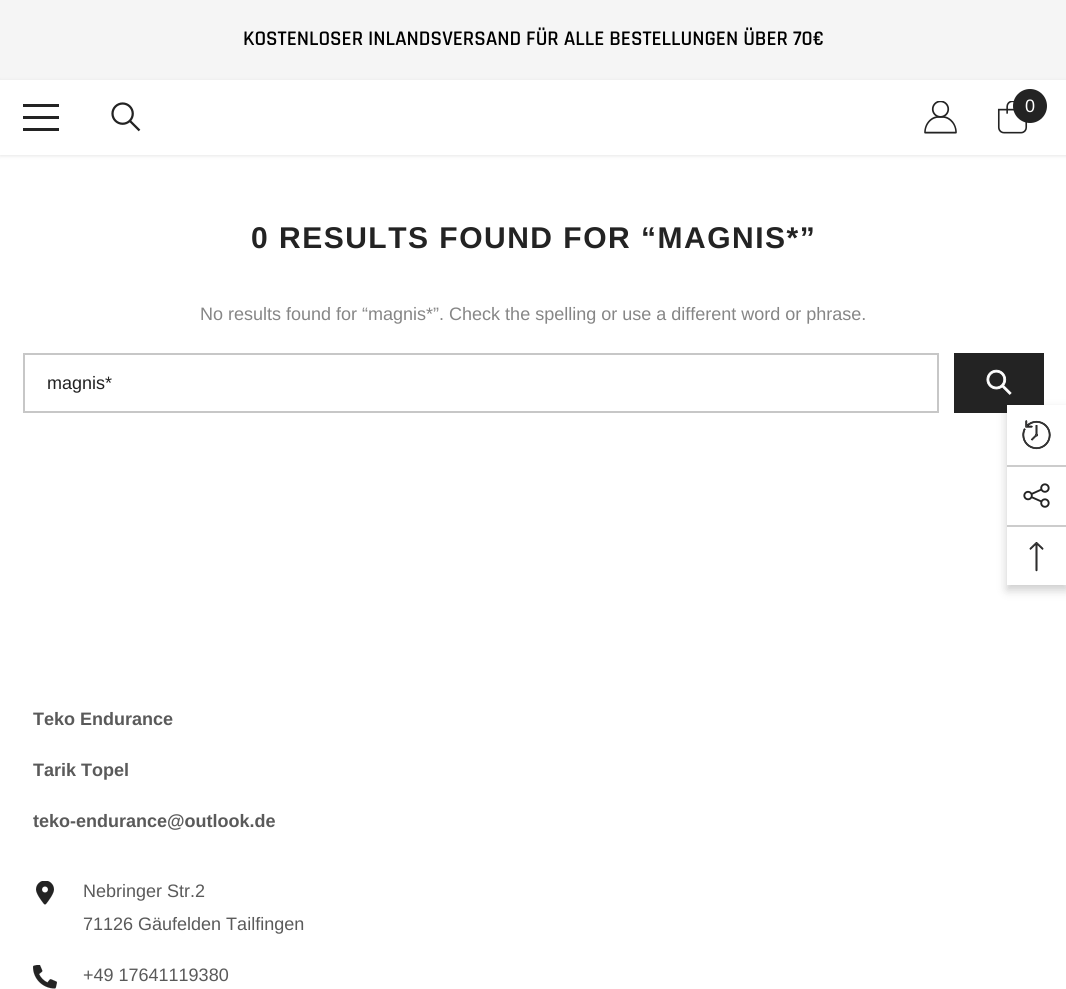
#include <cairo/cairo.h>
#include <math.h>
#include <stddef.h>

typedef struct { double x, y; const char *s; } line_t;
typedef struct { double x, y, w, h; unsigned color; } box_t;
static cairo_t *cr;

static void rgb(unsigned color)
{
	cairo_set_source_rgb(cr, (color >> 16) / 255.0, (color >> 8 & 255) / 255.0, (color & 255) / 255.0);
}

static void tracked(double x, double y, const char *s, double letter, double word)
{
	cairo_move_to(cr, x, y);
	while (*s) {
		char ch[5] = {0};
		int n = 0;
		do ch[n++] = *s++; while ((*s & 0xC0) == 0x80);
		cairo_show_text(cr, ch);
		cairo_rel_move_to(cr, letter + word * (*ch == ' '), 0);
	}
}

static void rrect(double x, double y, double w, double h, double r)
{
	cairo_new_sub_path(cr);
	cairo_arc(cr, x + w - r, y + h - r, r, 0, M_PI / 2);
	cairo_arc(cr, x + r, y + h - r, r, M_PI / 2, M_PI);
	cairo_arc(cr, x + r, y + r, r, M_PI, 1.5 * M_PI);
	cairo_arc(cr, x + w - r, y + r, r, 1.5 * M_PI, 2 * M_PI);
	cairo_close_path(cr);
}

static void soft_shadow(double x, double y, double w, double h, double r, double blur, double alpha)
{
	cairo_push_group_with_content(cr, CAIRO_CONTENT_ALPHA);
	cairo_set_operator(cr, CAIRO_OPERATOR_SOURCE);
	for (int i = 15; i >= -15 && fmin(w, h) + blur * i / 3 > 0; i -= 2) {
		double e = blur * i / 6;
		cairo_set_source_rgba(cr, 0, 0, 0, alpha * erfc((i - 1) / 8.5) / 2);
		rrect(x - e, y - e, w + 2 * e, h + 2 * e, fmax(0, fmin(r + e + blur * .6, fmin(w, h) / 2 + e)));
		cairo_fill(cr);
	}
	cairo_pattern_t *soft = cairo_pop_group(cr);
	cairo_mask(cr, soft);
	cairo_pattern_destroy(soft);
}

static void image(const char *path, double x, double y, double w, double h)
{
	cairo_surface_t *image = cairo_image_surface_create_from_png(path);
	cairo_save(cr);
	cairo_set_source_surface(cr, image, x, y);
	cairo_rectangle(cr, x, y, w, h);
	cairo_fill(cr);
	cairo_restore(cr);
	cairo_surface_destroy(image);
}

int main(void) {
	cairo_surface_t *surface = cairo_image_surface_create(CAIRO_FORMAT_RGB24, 1066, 989);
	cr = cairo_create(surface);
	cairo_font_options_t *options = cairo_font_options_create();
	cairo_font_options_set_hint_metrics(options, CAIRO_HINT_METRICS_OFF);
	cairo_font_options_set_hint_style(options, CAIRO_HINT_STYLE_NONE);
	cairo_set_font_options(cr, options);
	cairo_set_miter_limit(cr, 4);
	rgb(0xffffff);
	cairo_paint(cr);
	rgb(0xf5f5f5);
	cairo_rectangle(cr, 0, 0, 1066, 80);
	cairo_fill(cr);
	rgb(0x000000);
	soft_shadow(0, 81, 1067, 75, 0, 2, 0.1);
	{
		static const box_t items[] = {
			{0, 80, 1066, 75, 0xffffff},
			{23, 116, 36, 3, 0x232323},
			{23, 104, 36, 3, 0x232323},
			{23, 128, 36, 3, 0x232323},
		};
		for (size_t i = 0; i < sizeof items / sizeof *items; i++) {
			rgb(items[i].color);
			cairo_rectangle(cr, items[i].x, items[i].y, items[i].w, items[i].h);
			cairo_fill(cr);
		}
	}
	image("img/1.png", 111, 102, 30, 30);
	image("img/2.png", 924, 101, 33, 33);
	image("img/3.png", 997, 101, 31, 33);
	cairo_arc(cr, 1030, 106, 17, 0, 2 * M_PI);
	cairo_fill(cr);
	cairo_rectangle(cr, 24, 354, 914, 58);
	rgb(0xc7c7c7);
	cairo_stroke(cr);
	rgb(0x232323);
	cairo_rectangle(cr, 954, 353, 90, 60);
	cairo_fill(cr);
	image("img/4.png", 986, 369, 26, 26);
	image("img/5.png", 36, 881, 18, 24);
	image("img/6.png", 33, 965, 24, 24);
	rgb(0x000000);
	soft_shadow(1007, 410, 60, 180, 0, 5, 0.2);
	rgb(0xffffff);
	cairo_rectangle(cr, 1007, 405, 59, 180);
	cairo_fill(cr);
	image("img/7.png", 1022, 420, 29, 30);
	rgb(0xcccccc);
	cairo_rectangle(cr, 1007, 465, 59, 2);
	cairo_fill(cr);
	image("img/8.png", 1023, 483, 27, 25);
	cairo_rectangle(cr, 1007, 525, 59, 2);
	cairo_fill(cr);
	image("img/9.png", 1029, 542, 15, 30);
	cairo_select_font_face(cr, "Rajdhani SemiBold", CAIRO_FONT_SLANT_NORMAL, CAIRO_FONT_WEIGHT_NORMAL);
	cairo_set_font_size(cr, 21);
	rgb(0x000000);
	cairo_move_to(cr, 243, 45);
	cairo_show_text(cr, "KOSTENLOSER INLANDSVERSAND FÜR ALLE BESTELLUNGEN ÜBER 70€");
	cairo_select_font_face(cr, "Arimo", CAIRO_FONT_SLANT_NORMAL, CAIRO_FONT_WEIGHT_NORMAL);
	cairo_set_font_size(cr, 18);
	rgb(0xffffff);
	cairo_move_to(cr, 1025, 112);
	cairo_show_text(cr, "0");
	cairo_select_font_face(cr, "Arimo", CAIRO_FONT_SLANT_NORMAL, CAIRO_FONT_WEIGHT_BOLD);
	cairo_set_font_size(cr, 30);
	rgb(0x232323);
	tracked(251, 248, "0 RESULTS FOUND FOR “MAGNIS*”", 1.5, 0);
	cairo_select_font_face(cr, "Arimo", CAIRO_FONT_SLANT_NORMAL, CAIRO_FONT_WEIGHT_NORMAL);
	cairo_set_font_size(cr, 18);
	rgb(0x868686);
	cairo_move_to(cr, 200, 320);
	cairo_show_text(cr, "No results found for “magnis*”. Check the spelling or use a different word or phrase.");
	rgb(0x232323);
	cairo_move_to(cr, 47, 389);
	cairo_show_text(cr, "magnis*");
	cairo_select_font_face(cr, "Arimo", CAIRO_FONT_SLANT_NORMAL, CAIRO_FONT_WEIGHT_BOLD);
	rgb(0x5a5a5a);
	{
		static const line_t items[] = {
			{33, 725, "Teko Endurance"},
			{33, 776, "Tarik Topel"},
			{33, 827, "teko-endurance@outlook.de"},
		};
		for (size_t i = 0; i < sizeof items / sizeof *items; i++) {
			cairo_move_to(cr, items[i].x, items[i].y);
			cairo_show_text(cr, items[i].s);
		}
	}
	cairo_select_font_face(cr, "Arimo", CAIRO_FONT_SLANT_NORMAL, CAIRO_FONT_WEIGHT_NORMAL);
	{
		static const line_t items[] = {
			{83, 897, "Nebringer Str.2"},
			{83, 930, "71126 Gäufelden Tailfingen"},
			{83, 981, "+49 17641119380"},
		};
		for (size_t i = 0; i < sizeof items / sizeof *items; i++) {
			cairo_move_to(cr, items[i].x, items[i].y);
			cairo_show_text(cr, items[i].s);
		}
	}
	cairo_surface_write_to_png(surface, "page.png");
	cairo_font_options_destroy(options);
	cairo_destroy(cr);
	cairo_surface_destroy(surface);
	return 0;
}
